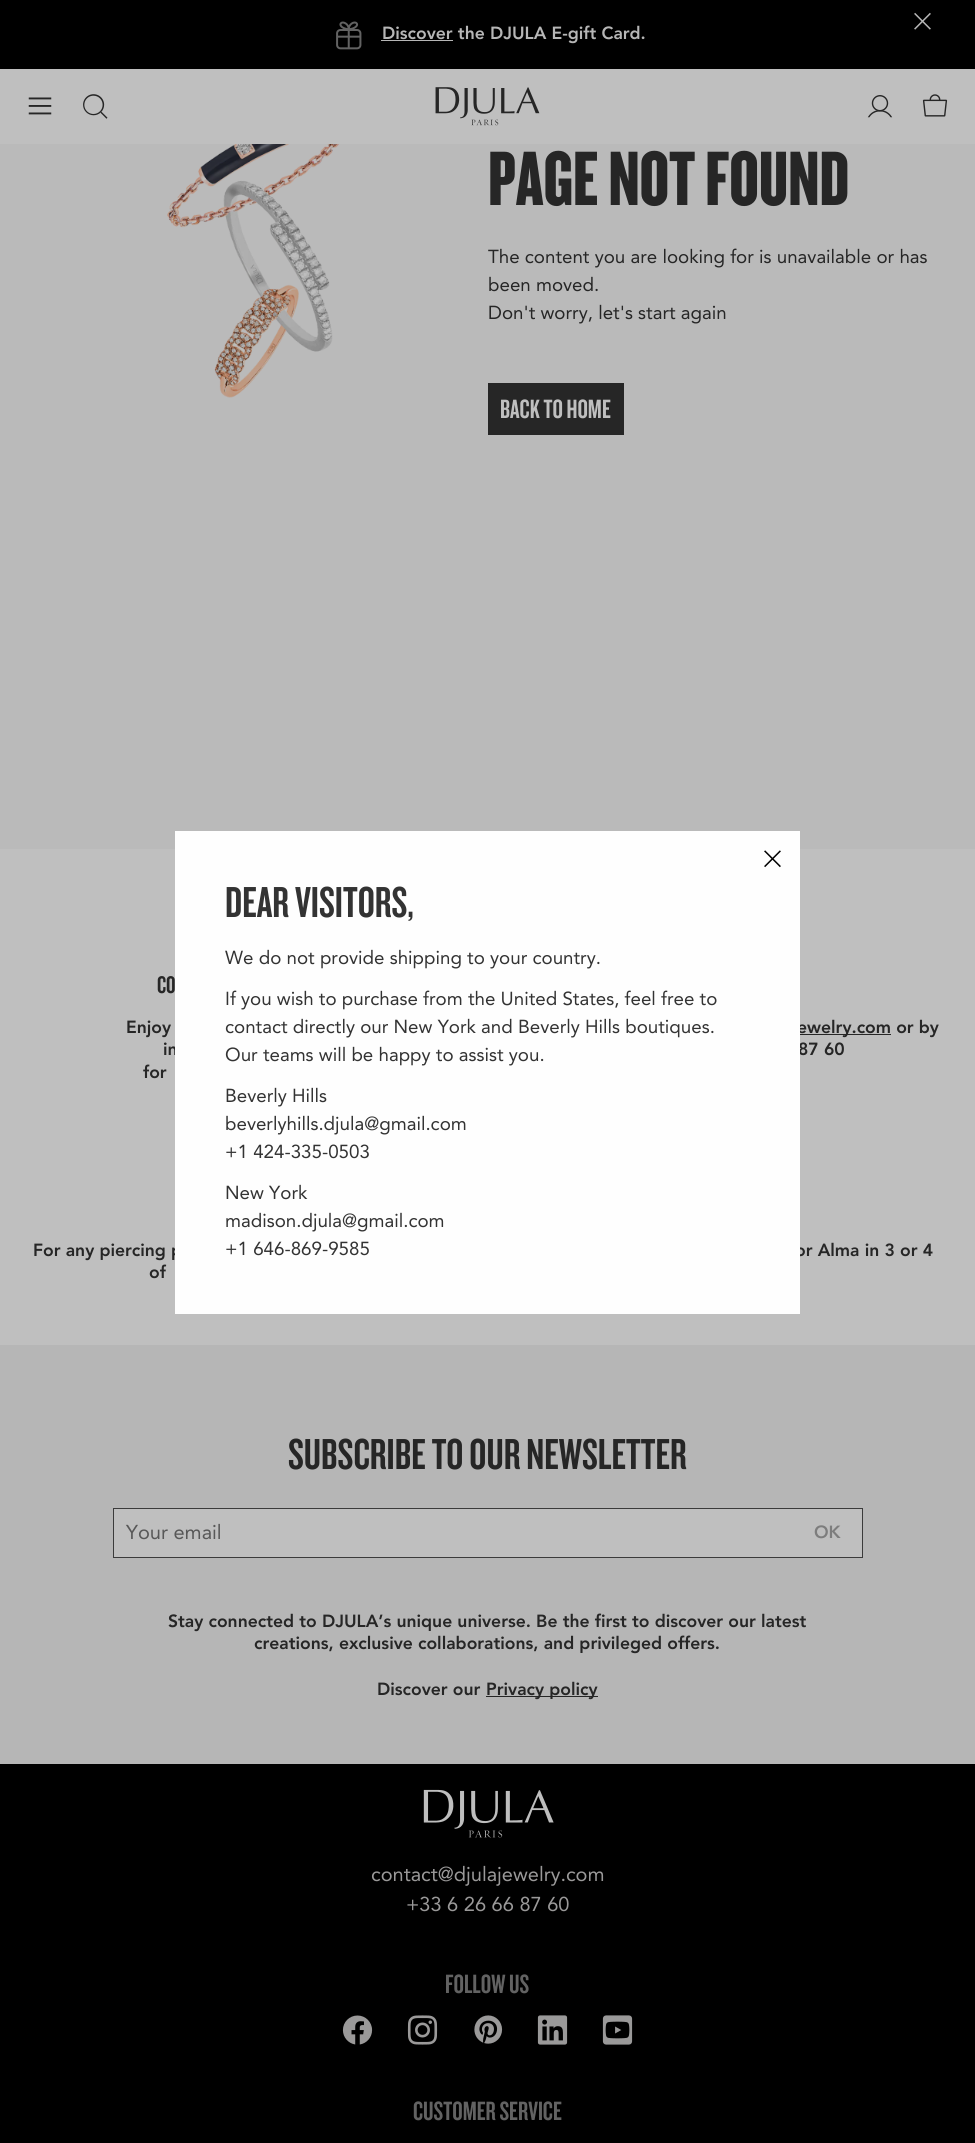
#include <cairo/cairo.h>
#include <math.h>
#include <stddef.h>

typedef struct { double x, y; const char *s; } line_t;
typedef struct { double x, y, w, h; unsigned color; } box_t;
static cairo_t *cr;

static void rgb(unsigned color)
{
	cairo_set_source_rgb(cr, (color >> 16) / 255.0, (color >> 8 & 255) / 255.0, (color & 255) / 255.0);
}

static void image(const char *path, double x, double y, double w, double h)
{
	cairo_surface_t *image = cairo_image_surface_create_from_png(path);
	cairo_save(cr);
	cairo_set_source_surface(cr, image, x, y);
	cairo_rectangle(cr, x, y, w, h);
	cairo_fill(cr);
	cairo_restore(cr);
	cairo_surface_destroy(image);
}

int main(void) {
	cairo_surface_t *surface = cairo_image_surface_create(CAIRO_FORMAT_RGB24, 975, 2143);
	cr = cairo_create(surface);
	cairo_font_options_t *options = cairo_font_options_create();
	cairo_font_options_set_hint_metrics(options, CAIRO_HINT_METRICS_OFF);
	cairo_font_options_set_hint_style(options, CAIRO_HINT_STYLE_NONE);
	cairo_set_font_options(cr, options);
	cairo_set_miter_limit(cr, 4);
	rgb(0xbfbfbf);
	cairo_paint(cr);
	rgb(0x000000);
	cairo_rectangle(cr, 0, 0, 975, 69);
	cairo_fill(cr);
	image("img/1.png", 914, 12, 17, 18);
	image("img/2.png", 336, 21, 26, 29);
	rgb(0xb6b6b6);
	cairo_rectangle(cr, 381, 40, 72, 1);
	cairo_fill(cr);
	image("img/3.png", 28, 97, 24, 18);
	image("img/4.png", 83, 94, 25, 25);
	image("img/5.png", 435, 87, 105, 39);
	image("img/6.png", 867, 95, 26, 23);
	image("img/7.png", 922, 94, 26, 23);
	rgb(0xbababa);
	cairo_rectangle(cr, 0, 144, 975, 705);
	cairo_fill(cr);
	image("img/8.png", 167, 144, 173, 254);
	{
		static const box_t items[] = {
			{488, 383, 136, 52, 0x262626},
			{800, 1034, 91, 1, 0x262626},
			{0, 1345, 975, 419, 0xb6b6b6},
		};
		for (size_t i = 0; i < sizeof items / sizeof *items; i++) {
			rgb(items[i].color);
			cairo_rectangle(cr, items[i].x, items[i].y, items[i].w, items[i].h);
			cairo_fill(cr);
		}
	}
	rgb(0xbfbfbf);
	cairo_rectangle(cr, 113.5, 1508.5, 749, 49);
	cairo_fill_preserve(cr);
	rgb(0x3b3b3b);
	cairo_set_line_width(cr, 1);
	cairo_stroke(cr);
	rgb(0x262626);
	cairo_rectangle(cr, 486, 1696, 112, 1);
	cairo_fill(cr);
	rgb(0x000000);
	cairo_rectangle(cr, 0, 1764, 975, 379);
	cairo_fill(cr);
	image("img/10.png", 423, 1789, 131, 49);
	image("img/11.png", 342, 2015, 31, 30);
	image("img/12.png", 407, 2015, 31, 30);
	image("img/13.png", 474, 2015, 29, 29);
	image("img/14.png", 537, 2015, 31, 30);
	image("img/15.png", 602, 2015, 31, 30);
	cairo_select_font_face(cr, "Avenir Black", CAIRO_FONT_SLANT_NORMAL, CAIRO_FONT_WEIGHT_NORMAL);
	cairo_set_font_size(cr, 17.5);
	rgb(0xb6b6b6);
	cairo_move_to(cr, 382, 39);
	cairo_show_text(cr, "Discover the DJULA E-gift Card.");
	cairo_select_font_face(cr, "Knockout", CAIRO_FONT_SLANT_NORMAL, CAIRO_FONT_WEIGHT_NORMAL);
	cairo_set_font_size(cr, 80);
	rgb(0x262626);
	cairo_move_to(cr, 488, 205);
	cairo_show_text(cr, "PAGE NOT FOUND");
	cairo_select_font_face(cr, "Avenir", CAIRO_FONT_SLANT_NORMAL, CAIRO_FONT_WEIGHT_NORMAL);
	cairo_set_font_size(cr, 18.75);
	{
		static const line_t items[] = {
			{488, 263, "The content you are looking for is unavailable or has"},
			{488, 291, "been moved."},
			{488, 319, "Don't worry, let's start again"},
		};
		for (size_t i = 0; i < sizeof items / sizeof *items; i++) {
			cairo_move_to(cr, items[i].x, items[i].y);
			cairo_show_text(cr, items[i].s);
		}
	}
	cairo_select_font_face(cr, "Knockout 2", CAIRO_FONT_SLANT_NORMAL, CAIRO_FONT_WEIGHT_NORMAL);
	cairo_set_font_size(cr, 27.5);
	rgb(0xbfbfbf);
	cairo_move_to(cr, 500, 418);
	cairo_show_text(cr, "BACK TO HOME");
	cairo_set_font_size(cr, 25);
	rgb(0x262626);
	cairo_move_to(cr, 157, 993);
	cairo_show_text(cr, "CO");
	cairo_select_font_face(cr, "Avenir Black", CAIRO_FONT_SLANT_NORMAL, CAIRO_FONT_WEIGHT_NORMAL);
	cairo_set_font_size(cr, 17.5);
	{
		static const line_t items[] = {
			{126, 1033, "Enjoy"},
			{163, 1055, "in"},
			{143, 1078, "for"},
			{797, 1033, "ewelry.com or by"},
			{798, 1055, "87 60"},
			{33, 1256, "For any piercing p"},
			{149, 1278, "of"},
			{795, 1256, "or Alma in 3 or 4"},
		};
		for (size_t i = 0; i < sizeof items / sizeof *items; i++) {
			cairo_move_to(cr, items[i].x, items[i].y);
			cairo_show_text(cr, items[i].s);
		}
	}
	rgb(0xfefefe);
	cairo_rectangle(cr, 175, 831, 625, 483);
	cairo_fill(cr);
	image("img/9.png", 764, 850, 17, 18);
	cairo_select_font_face(cr, "Avenir", CAIRO_FONT_SLANT_NORMAL, CAIRO_FONT_WEIGHT_NORMAL);
	cairo_set_font_size(cr, 18.75);
	rgb(0x333333);
	{
		static const line_t items[] = {
			{225, 1255, "+1 646-869-9585"},
			{225, 1227, "madison.djula@gmail.com"},
			{225, 1199, "New York"},
			{225, 1158, "+1 424-335-0503"},
			{225, 1130, "beverlyhills.djula@gmail.com"},
			{225, 1102, "Beverly Hills"},
			{225, 1061, "Our teams will be happy to assist you."},
			{225, 1033, "contact directly our New York and Beverly Hills boutiques."},
			{225, 1005, "If you wish to purchase from the United States, feel free to"},
			{225, 964, "We do not provide shipping to your country."},
		};
		for (size_t i = 0; i < sizeof items / sizeof *items; i++) {
			cairo_move_to(cr, items[i].x, items[i].y);
			cairo_show_text(cr, items[i].s);
		}
	}
	cairo_select_font_face(cr, "Knockout 2", CAIRO_FONT_SLANT_NORMAL, CAIRO_FONT_WEIGHT_NORMAL);
	cairo_set_font_size(cr, 45);
	cairo_move_to(cr, 225, 917);
	cairo_show_text(cr, "DEAR VISITORS,");
	rgb(0x262626);
	cairo_move_to(cr, 288, 1469);
	cairo_show_text(cr, "SUBSCRIBE TO OUR NEWSLETTER");
	cairo_select_font_face(cr, "Avenir", CAIRO_FONT_SLANT_NORMAL, CAIRO_FONT_WEIGHT_NORMAL);
	cairo_set_font_size(cr, 20);
	rgb(0x585858);
	cairo_move_to(cr, 126, 1539);
	cairo_show_text(cr, "Your email");
	cairo_select_font_face(cr, "Avenir Black", CAIRO_FONT_SLANT_NORMAL, CAIRO_FONT_WEIGHT_NORMAL);
	cairo_set_font_size(cr, 17.5);
	rgb(0x7d7d7d);
	cairo_move_to(cr, 814, 1538);
	cairo_show_text(cr, "OK");
	rgb(0x262626);
	{
		static const line_t items[] = {
			{168, 1627, "Stay connected to DJULA’s unique universe. Be the first to discover our latest"},
			{254, 1649, "creations, exclusive collaborations, and privileged offers."},
			{377, 1695, "Discover our"},
			{486, 1695, "Privacy policy"},
		};
		for (size_t i = 0; i < sizeof items / sizeof *items; i++) {
			cairo_move_to(cr, items[i].x, items[i].y);
			cairo_show_text(cr, items[i].s);
		}
	}
	cairo_select_font_face(cr, "Avenir", CAIRO_FONT_SLANT_NORMAL, CAIRO_FONT_WEIGHT_NORMAL);
	cairo_set_font_size(cr, 20);
	rgb(0x9a9999);
	cairo_move_to(cr, 371, 1881);
	cairo_show_text(cr, "contact@djulajewelry.com");
	cairo_move_to(cr, 406, 1911);
	cairo_show_text(cr, "+33 6 26 66 87 60");
	cairo_select_font_face(cr, "Knockout 2", CAIRO_FONT_SLANT_NORMAL, CAIRO_FONT_WEIGHT_NORMAL);
	cairo_set_font_size(cr, 27.5);
	rgb(0x626262);
	cairo_move_to(cr, 445, 1993);
	cairo_show_text(cr, "FOLLOW US");
	cairo_move_to(cr, 413, 2120);
	cairo_show_text(cr, "CUSTOMER SERVICE");
	cairo_surface_write_to_png(surface, "page.png");
	cairo_font_options_destroy(options);
	cairo_destroy(cr);
	cairo_surface_destroy(surface);
	return 0;
}
